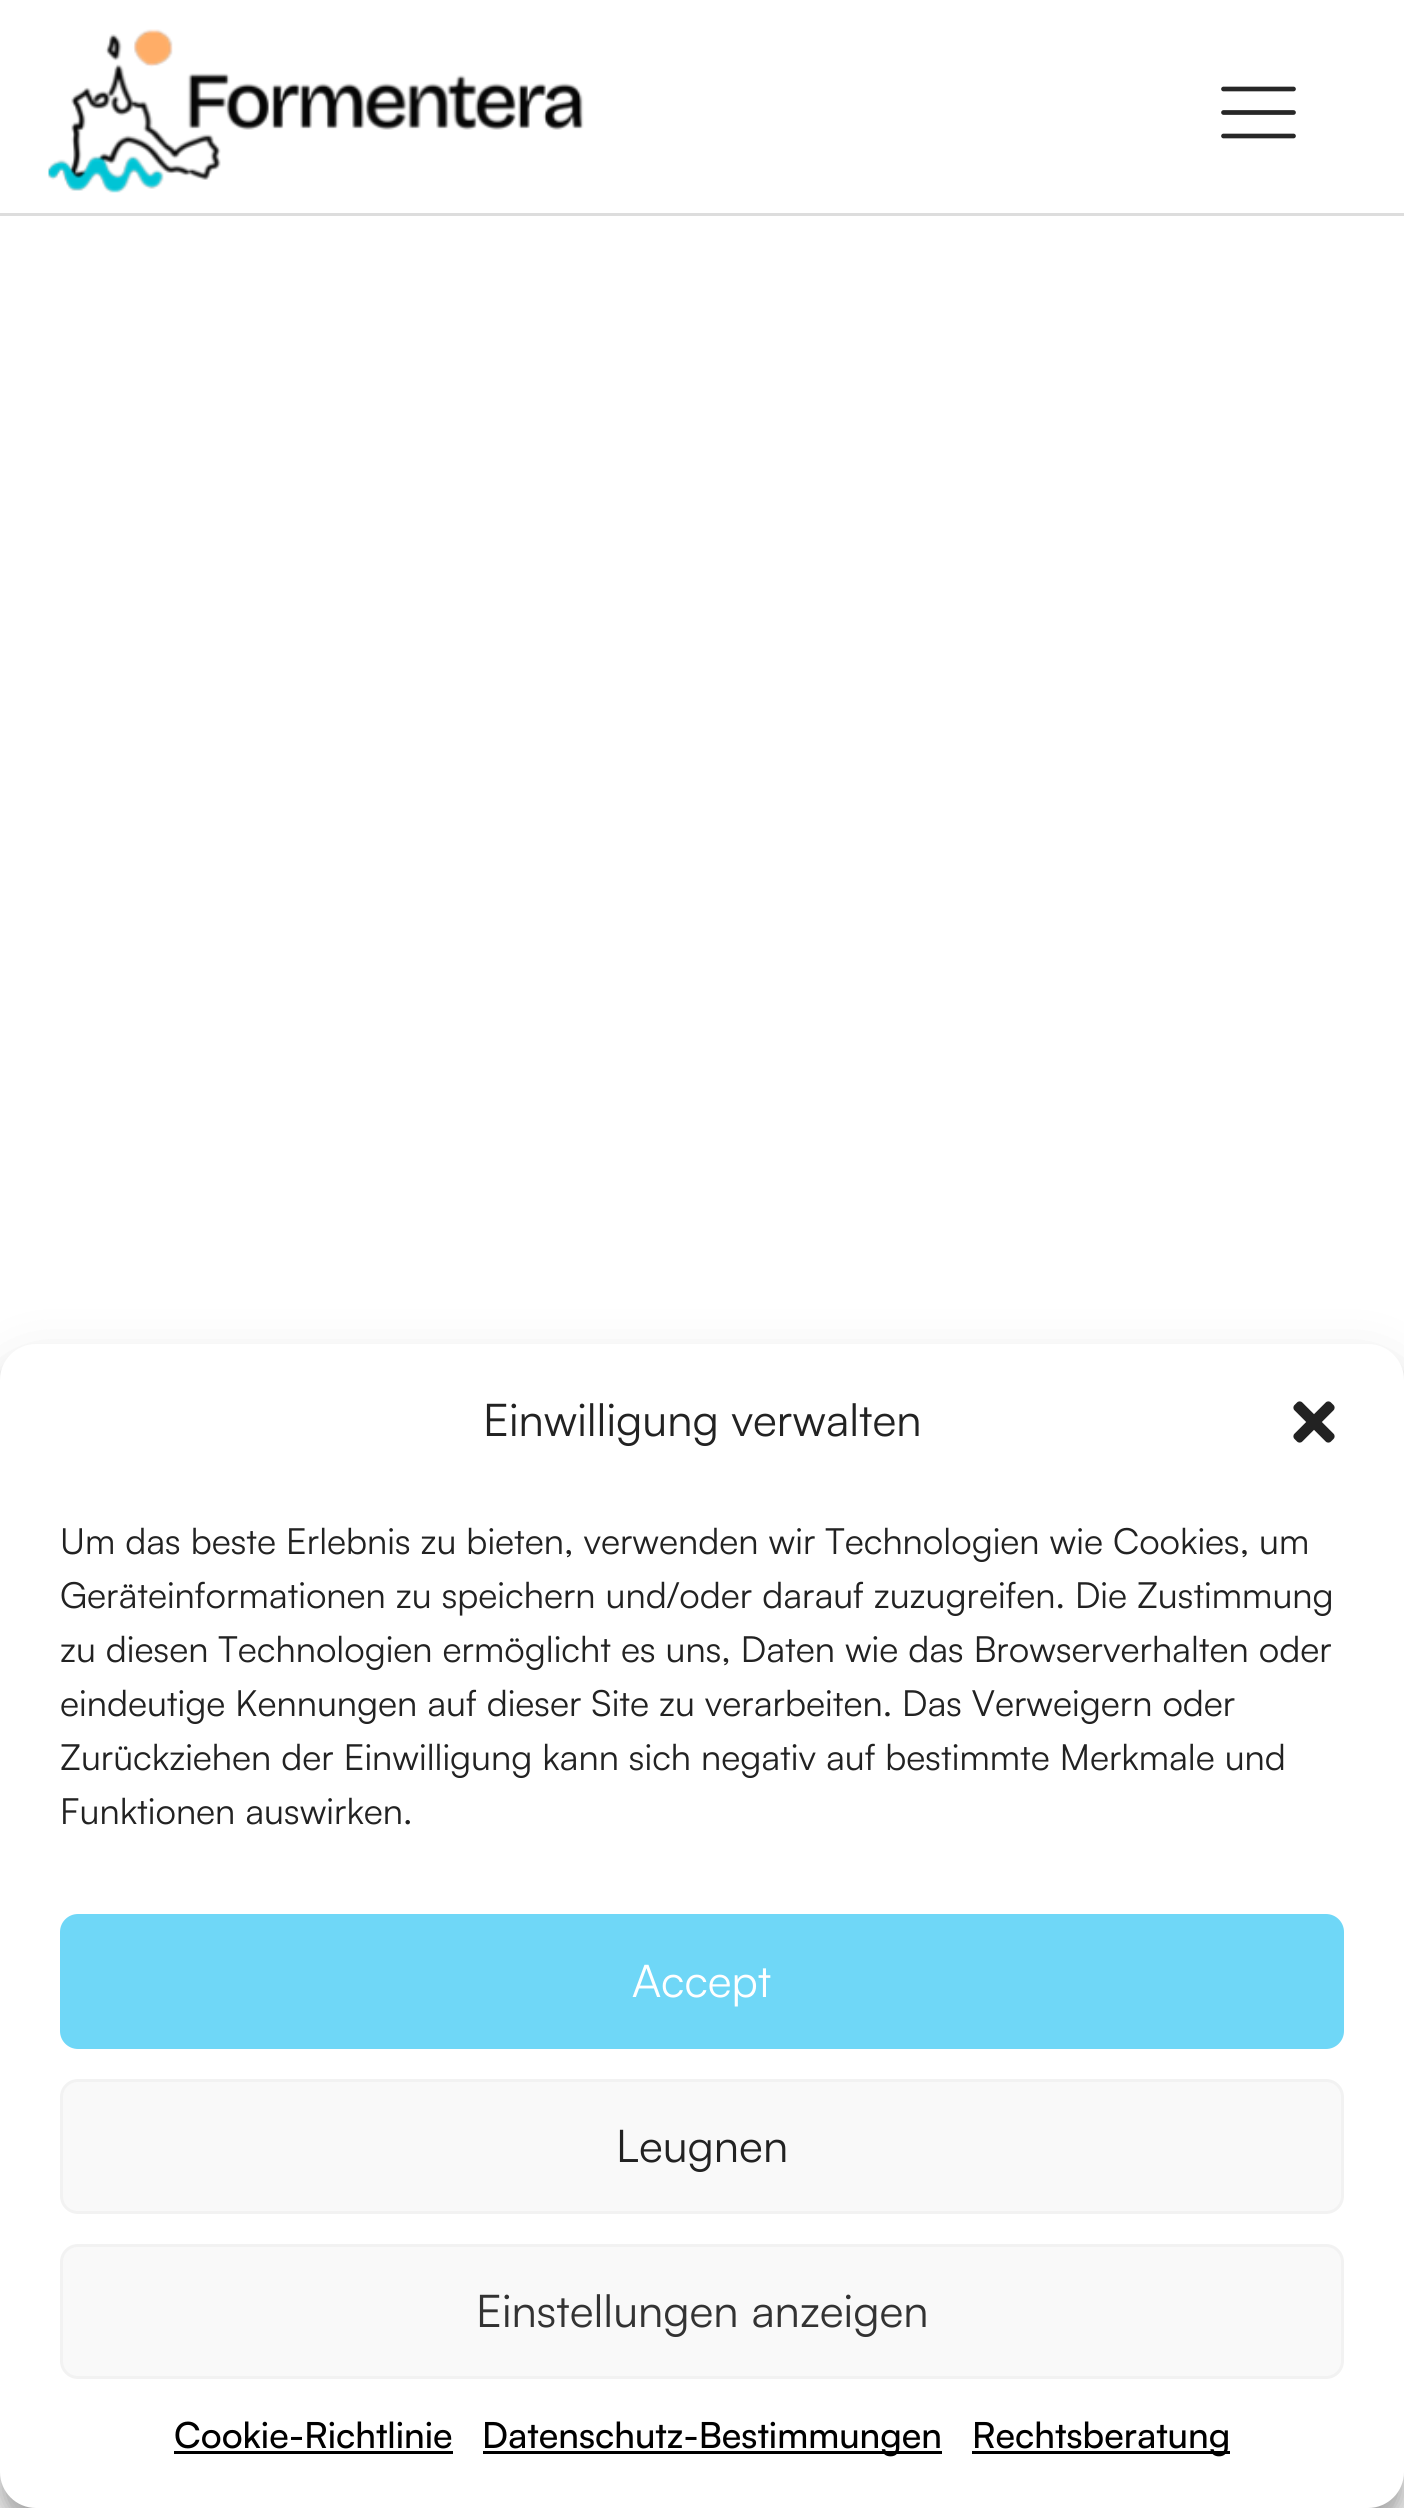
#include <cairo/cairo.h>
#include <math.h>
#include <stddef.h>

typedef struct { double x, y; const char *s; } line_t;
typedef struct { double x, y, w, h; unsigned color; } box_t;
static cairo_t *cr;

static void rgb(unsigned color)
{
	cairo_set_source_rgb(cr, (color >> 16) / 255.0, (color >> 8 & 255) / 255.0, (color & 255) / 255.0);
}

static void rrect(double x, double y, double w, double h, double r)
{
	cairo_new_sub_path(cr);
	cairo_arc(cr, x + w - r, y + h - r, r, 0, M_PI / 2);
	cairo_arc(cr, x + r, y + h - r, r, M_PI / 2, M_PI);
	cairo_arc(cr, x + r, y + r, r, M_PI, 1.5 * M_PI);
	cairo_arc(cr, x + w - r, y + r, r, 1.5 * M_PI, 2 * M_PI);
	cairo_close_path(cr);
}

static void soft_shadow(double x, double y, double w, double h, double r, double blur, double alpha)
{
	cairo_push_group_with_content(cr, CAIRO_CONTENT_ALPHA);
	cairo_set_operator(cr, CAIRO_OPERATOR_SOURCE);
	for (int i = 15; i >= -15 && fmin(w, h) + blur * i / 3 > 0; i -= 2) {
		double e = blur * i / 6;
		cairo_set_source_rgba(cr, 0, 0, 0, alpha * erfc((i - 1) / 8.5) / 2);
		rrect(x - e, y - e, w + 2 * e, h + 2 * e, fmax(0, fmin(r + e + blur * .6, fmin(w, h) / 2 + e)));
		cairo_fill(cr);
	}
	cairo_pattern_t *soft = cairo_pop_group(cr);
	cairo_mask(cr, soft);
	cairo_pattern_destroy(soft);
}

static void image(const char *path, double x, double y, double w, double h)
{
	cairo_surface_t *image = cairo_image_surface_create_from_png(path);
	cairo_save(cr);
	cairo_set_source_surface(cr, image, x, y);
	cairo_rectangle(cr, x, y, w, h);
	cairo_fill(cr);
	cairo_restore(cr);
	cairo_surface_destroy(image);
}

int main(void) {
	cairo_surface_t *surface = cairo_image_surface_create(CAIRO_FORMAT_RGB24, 1404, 2508);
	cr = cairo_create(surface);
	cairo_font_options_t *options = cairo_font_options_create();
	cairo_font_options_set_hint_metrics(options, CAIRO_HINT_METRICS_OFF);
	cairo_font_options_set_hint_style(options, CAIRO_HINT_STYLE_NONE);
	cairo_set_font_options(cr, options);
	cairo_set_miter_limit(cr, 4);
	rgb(0xffffff);
	cairo_paint(cr);
	rgb(0xdddddd);
	cairo_rectangle(cr, 0, 213, 1404, 3);
	cairo_fill(cr);
	image("img/1.png", 47, 29, 537, 164);
	cairo_new_path(cr);
	cairo_move_to(cr, 1223.5, 112.5);
	cairo_line_to(cr, 1293.5, 112.5);
	rgb(0x272727);
	cairo_set_line_width(cr, 4.7);
	cairo_set_line_cap(cr, CAIRO_LINE_CAP_ROUND);
	cairo_set_line_join(cr, CAIRO_LINE_JOIN_ROUND);
	cairo_stroke(cr);
	cairo_new_path(cr);
	cairo_move_to(cr, 1223.5, 89);
	cairo_line_to(cr, 1293.5, 89);
	cairo_stroke(cr);
	cairo_new_path(cr);
	cairo_move_to(cr, 1223.5, 136);
	cairo_line_to(cr, 1293.5, 136);
	cairo_stroke(cr);
	rgb(0x000000);
	soft_shadow(0, 1362, 1404, 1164, 36, 9, 0.23);
	soft_shadow(0, 1374, 1404, 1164, 36, 30, 0.19);
	rgb(0xffffff);
	rrect(0, 1344, 1404, 1164, 36);
	cairo_fill(cr);
	image("img/2.png", 1293, 1401, 42, 42);
	rgb(0x6fd7f7);
	rrect(61.5, 1915.5, 1281, 132, 16.5);
	cairo_fill_preserve(cr);
	cairo_set_line_width(cr, 3);
	cairo_set_line_cap(cr, CAIRO_LINE_CAP_BUTT);
	cairo_set_line_join(cr, CAIRO_LINE_JOIN_MITER);
	cairo_stroke(cr);
	rgb(0xf9f9f9);
	rrect(61.5, 2080.5, 1281, 132, 16.5);
	cairo_fill_preserve(cr);
	rgb(0xf2f2f2);
	cairo_stroke(cr);
	rgb(0xf9f9f9);
	rrect(61.5, 2245.5, 1281, 132, 16.5);
	cairo_fill_preserve(cr);
	rgb(0xf2f2f2);
	cairo_stroke(cr);
	{
		static const box_t items[] = {
			{174, 2451, 279, 3, 0x000000},
			{483, 2451, 459, 3, 0x000000},
			{972, 2451, 258, 3, 0x000000},
		};
		for (size_t i = 0; i < sizeof items / sizeof *items; i++) {
			rgb(items[i].color);
			cairo_rectangle(cr, items[i].x, items[i].y, items[i].w, items[i].h);
			cairo_fill(cr);
		}
	}
	cairo_select_font_face(cr, "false", CAIRO_FONT_SLANT_NORMAL, CAIRO_FONT_WEIGHT_NORMAL);
	cairo_set_font_size(cr, 45);
	rgb(0x222222);
	cairo_move_to(cr, 483, 1436);
	cairo_show_text(cr, "Einwilligung verwalten");
	cairo_set_font_size(cr, 36);
	{
		static const line_t items[] = {
			{60, 1554, "Um das beste Erlebnis zu bieten, verwenden wir Technologien wie Cookies, um"},
			{60, 1608, "Geräteinformationen zu speichern und/oder darauf zuzugreifen. Die Zustimmung"},
			{60, 1662, "zu diesen Technologien ermöglicht es uns, Daten wie das Browserverhalten oder"},
			{60, 1716, "eindeutige Kennungen auf dieser Site zu verarbeiten. Das Verweigern oder"},
			{60, 1770, "Zurückziehen der Einwilligung kann sich negativ auf bestimmte Merkmale und"},
			{60, 1824, "Funktionen auswirken."},
		};
		for (size_t i = 0; i < sizeof items / sizeof *items; i++) {
			cairo_move_to(cr, items[i].x, items[i].y);
			cairo_show_text(cr, items[i].s);
		}
	}
	cairo_set_font_size(cr, 45);
	rgb(0xffffff);
	cairo_move_to(cr, 632, 1997);
	cairo_show_text(cr, "Accept");
	rgb(0x222222);
	cairo_move_to(cr, 616, 2162);
	cairo_show_text(cr, "Leugnen");
	rgb(0x333333);
	cairo_move_to(cr, 476, 2327);
	cairo_show_text(cr, "Einstellungen anzeigen");
	cairo_select_font_face(cr, "Satoshi Medium", CAIRO_FONT_SLANT_NORMAL, CAIRO_FONT_WEIGHT_NORMAL);
	cairo_set_font_size(cr, 36);
	rgb(0x000000);
	{
		static const line_t items[] = {
			{174, 2448, "Cookie-Richtlinie"},
			{482, 2448, "Datenschutz-Bestimmungen"},
			{972, 2448, "Rechtsberatung"},
		};
		for (size_t i = 0; i < sizeof items / sizeof *items; i++) {
			cairo_move_to(cr, items[i].x, items[i].y);
			cairo_show_text(cr, items[i].s);
		}
	}
	cairo_surface_write_to_png(surface, "page.png");
	cairo_font_options_destroy(options);
	cairo_destroy(cr);
	cairo_surface_destroy(surface);
	return 0;
}
